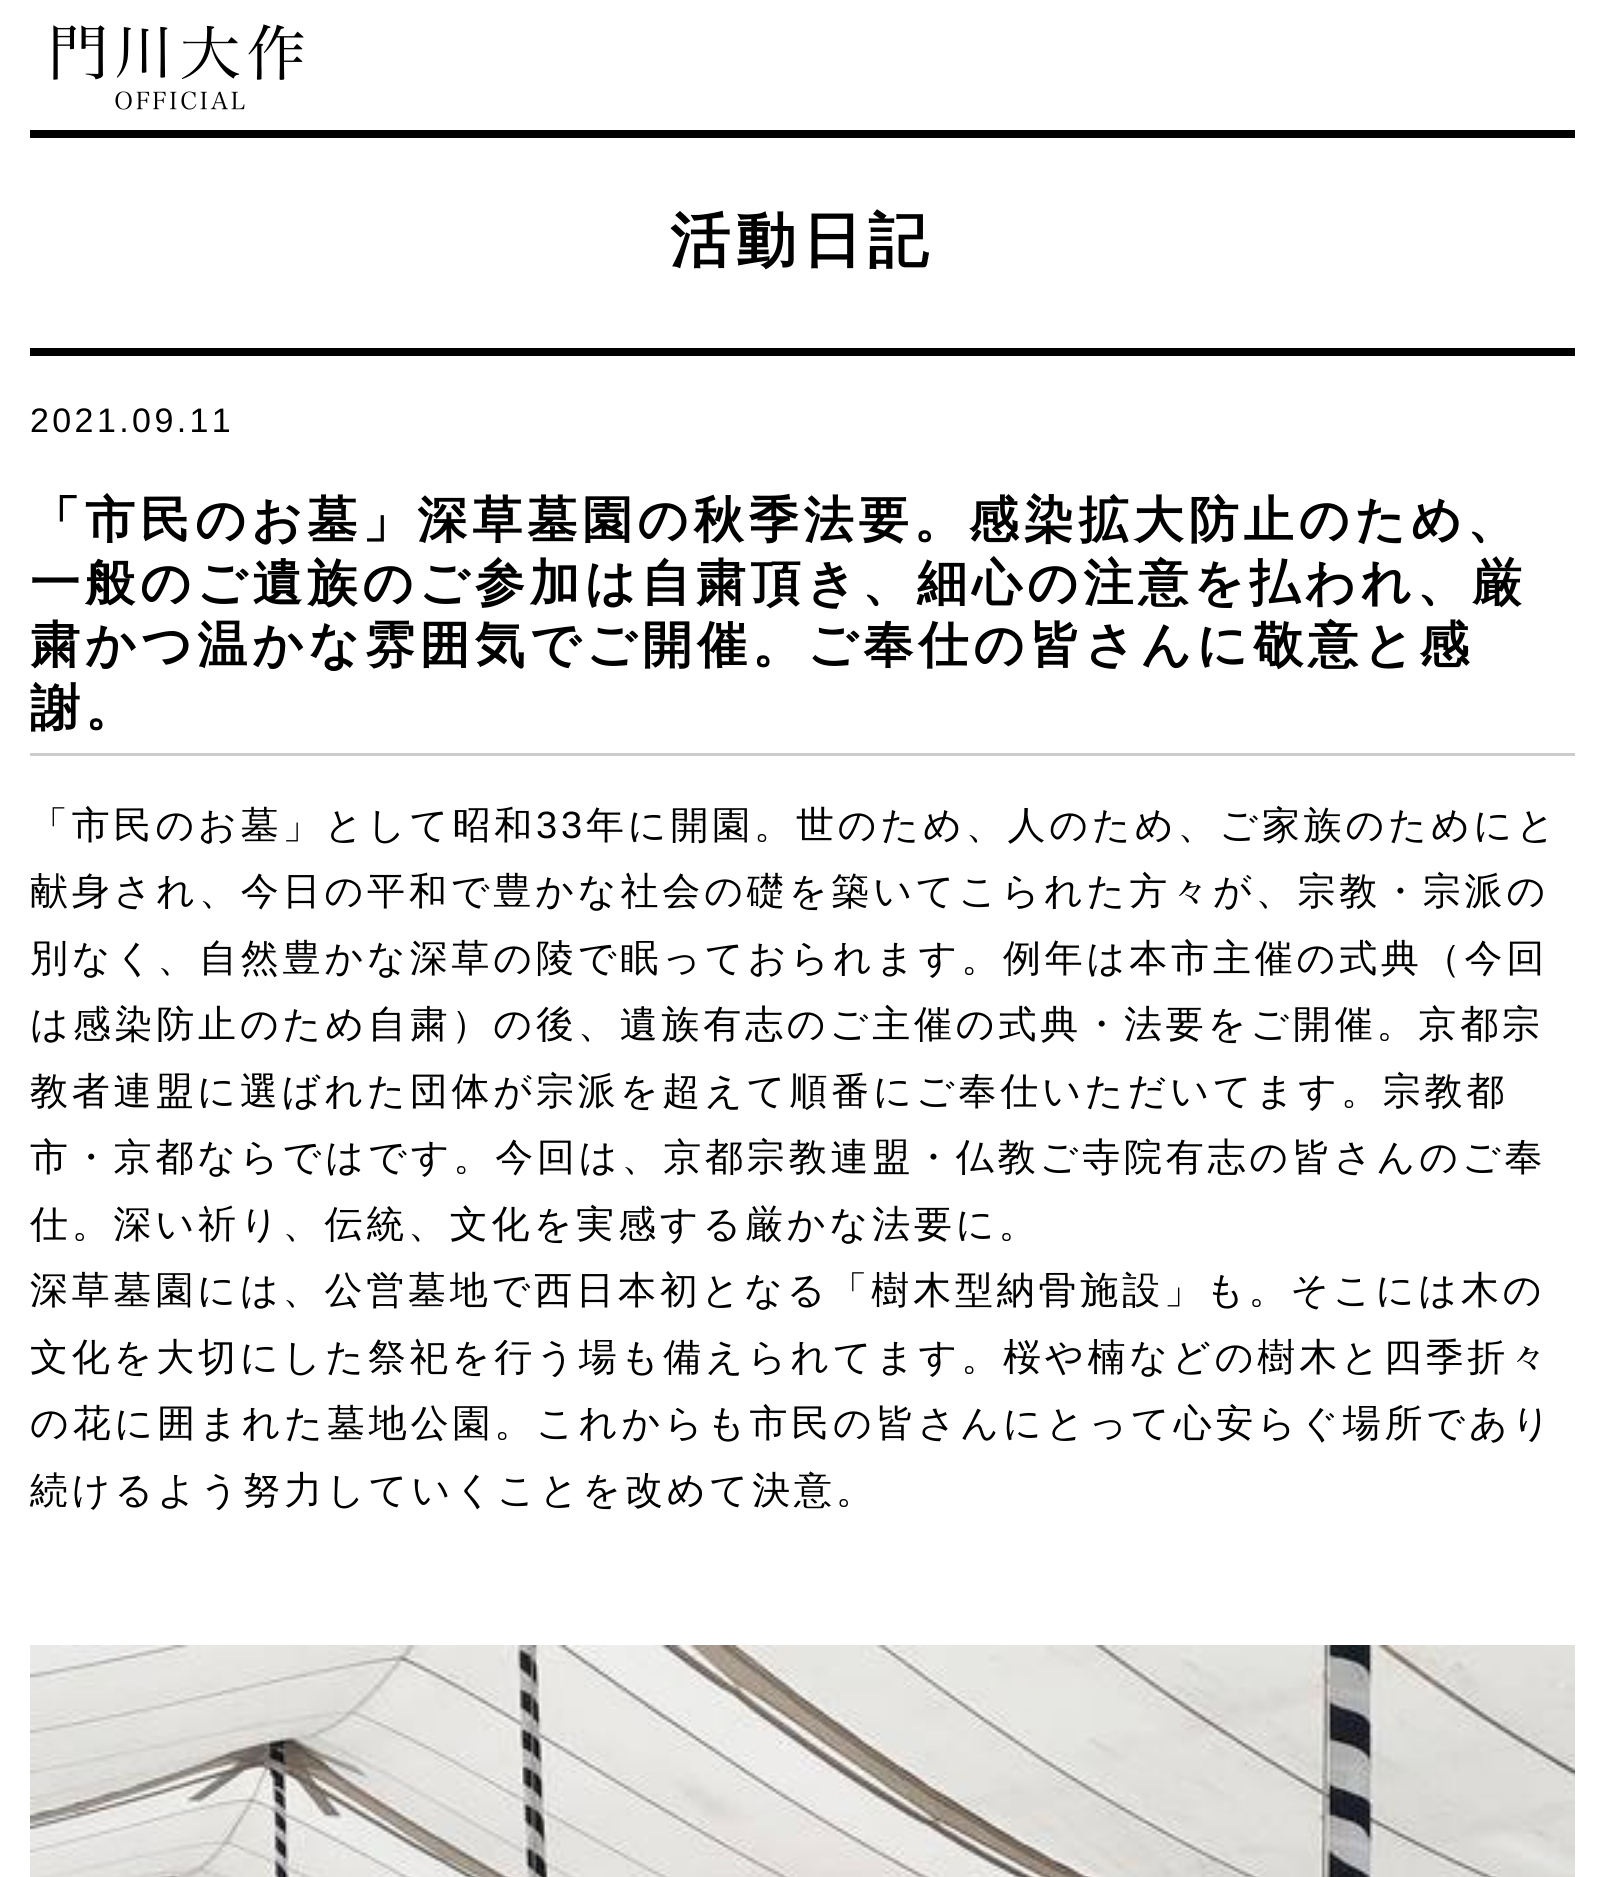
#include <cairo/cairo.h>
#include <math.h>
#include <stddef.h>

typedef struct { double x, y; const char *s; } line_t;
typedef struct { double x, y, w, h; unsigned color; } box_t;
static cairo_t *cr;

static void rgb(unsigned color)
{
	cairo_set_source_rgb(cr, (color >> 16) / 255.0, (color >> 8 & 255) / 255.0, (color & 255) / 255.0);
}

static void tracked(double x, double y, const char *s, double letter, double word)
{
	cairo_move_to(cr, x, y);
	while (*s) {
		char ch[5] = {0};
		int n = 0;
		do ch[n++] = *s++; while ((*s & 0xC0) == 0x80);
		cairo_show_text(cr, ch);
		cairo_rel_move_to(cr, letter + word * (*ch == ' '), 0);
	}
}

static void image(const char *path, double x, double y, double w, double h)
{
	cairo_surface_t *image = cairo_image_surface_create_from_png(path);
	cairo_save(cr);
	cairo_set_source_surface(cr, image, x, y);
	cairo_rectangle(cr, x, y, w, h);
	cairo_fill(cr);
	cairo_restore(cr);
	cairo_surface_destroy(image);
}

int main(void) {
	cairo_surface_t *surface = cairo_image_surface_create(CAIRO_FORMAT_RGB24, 1604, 1877);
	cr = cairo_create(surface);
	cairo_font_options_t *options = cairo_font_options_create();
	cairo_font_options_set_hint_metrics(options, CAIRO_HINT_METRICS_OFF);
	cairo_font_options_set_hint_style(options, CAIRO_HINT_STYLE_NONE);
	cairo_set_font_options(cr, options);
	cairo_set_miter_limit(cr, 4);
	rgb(0xffffff);
	cairo_paint(cr);
	{
		static const box_t items[] = {
			{30, 130, 1545, 8, 0x000000},
			{30, 348, 1545, 8, 0x000000},
			{30, 753, 1545, 3, 0xcccccc},
		};
		for (size_t i = 0; i < sizeof items / sizeof *items; i++) {
			rgb(items[i].color);
			cairo_rectangle(cr, items[i].x, items[i].y, items[i].w, items[i].h);
			cairo_fill(cr);
		}
	}
	image("img/1.png", 30, 1645, 1545, 232);
	cairo_select_font_face(cr, "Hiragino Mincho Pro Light", CAIRO_FONT_SLANT_NORMAL, CAIRO_FONT_WEIGHT_NORMAL);
	cairo_set_font_size(cr, 60);
	rgb(0x000000);
	tracked(48, 75, "門川大作", 6, 0);
	cairo_set_font_size(cr, 24);
	tracked(114, 110, "OFFICIAL", 2.5, 0);
	cairo_select_font_face(cr, "WenQuanYi Zen Hei", CAIRO_FONT_SLANT_NORMAL, CAIRO_FONT_WEIGHT_BOLD);
	cairo_set_font_size(cr, 60);
	tracked(670, 261, "活動日記", 6, 0);
	cairo_select_font_face(cr, "Liberation Sans", CAIRO_FONT_SLANT_NORMAL, CAIRO_FONT_WEIGHT_NORMAL);
	cairo_set_font_size(cr, 34);
	tracked(30, 432, "2021.09.11", 3.4, 0);
	cairo_select_font_face(cr, "WenQuanYi Zen Hei", CAIRO_FONT_SLANT_NORMAL, CAIRO_FONT_WEIGHT_BOLD);
	cairo_set_font_size(cr, 50);
	{
		static const line_t items[] = {
			{30, 537, "「市民のお墓」深草墓園の秋季法要。感染拡大防止のため、"},
			{30, 600, "一般のご遺族のご参加は自粛頂き、細心の注意を払われ、厳"},
			{30, 662, "粛かつ温かな雰囲気でご開催。ご奉仕の皆さんに敬意と感"},
			{30, 725, "謝。"},
		};
		for (size_t i = 0; i < sizeof items / sizeof *items; i++) {
			tracked(items[i].x, items[i].y, items[i].s, 5, 0);
		}
	}
	cairo_select_font_face(cr, "WenQuanYi Zen Hei Medium", CAIRO_FONT_SLANT_NORMAL, CAIRO_FONT_WEIGHT_NORMAL);
	cairo_set_font_size(cr, 38);
	tracked(30, 838, "「市民のお墓」として昭和", 3.8, 0);
	cairo_select_font_face(cr, "Liberation Sans", CAIRO_FONT_SLANT_NORMAL, CAIRO_FONT_WEIGHT_NORMAL);
	tracked(536, 838, "33", 3.8, 0);
	cairo_select_font_face(cr, "WenQuanYi Zen Hei Medium", CAIRO_FONT_SLANT_NORMAL, CAIRO_FONT_WEIGHT_NORMAL);
	{
		static const line_t items[] = {
			{586, 838, "年に開園。世のため、人のため、ご家族のためにと"},
			{30, 904, "献身され、今日の平和で豊かな社会の礎を築いてこられた方々が、宗教・宗派の"},
			{30, 971, "別なく、自然豊かな深草の陵で眠っておられます。例年は本市主催の式典（今回"},
			{30, 1037, "は感染防止のため自粛）の後、遺族有志のご主催の式典・法要をご開催。京都宗"},
			{30, 1104, "教者連盟に選ばれた団体が宗派を超えて順番にご奉仕いただいてます。宗教都"},
			{30, 1170, "市・京都ならではです。今回は、京都宗教連盟・仏教ご寺院有志の皆さんのご奉"},
			{30, 1237, "仕。深い祈り、伝統、文化を実感する厳かな法要に。"},
			{30, 1303, "深草墓園には、公営墓地で西日本初となる「樹木型納骨施設」も。そこには木の"},
			{30, 1370, "文化を大切にした祭祀を行う場も備えられてます。桜や楠などの樹木と四季折々"},
			{30, 1436, "の花に囲まれた墓地公園。これからも市民の皆さんにとって心安らぐ場所であり"},
			{30, 1503, "続けるよう努力していくことを改めて決意。"},
		};
		for (size_t i = 0; i < sizeof items / sizeof *items; i++) {
			tracked(items[i].x, items[i].y, items[i].s, 3.8, 0);
		}
	}
	cairo_surface_write_to_png(surface, "page.png");
	cairo_font_options_destroy(options);
	cairo_destroy(cr);
	cairo_surface_destroy(surface);
	return 0;
}
